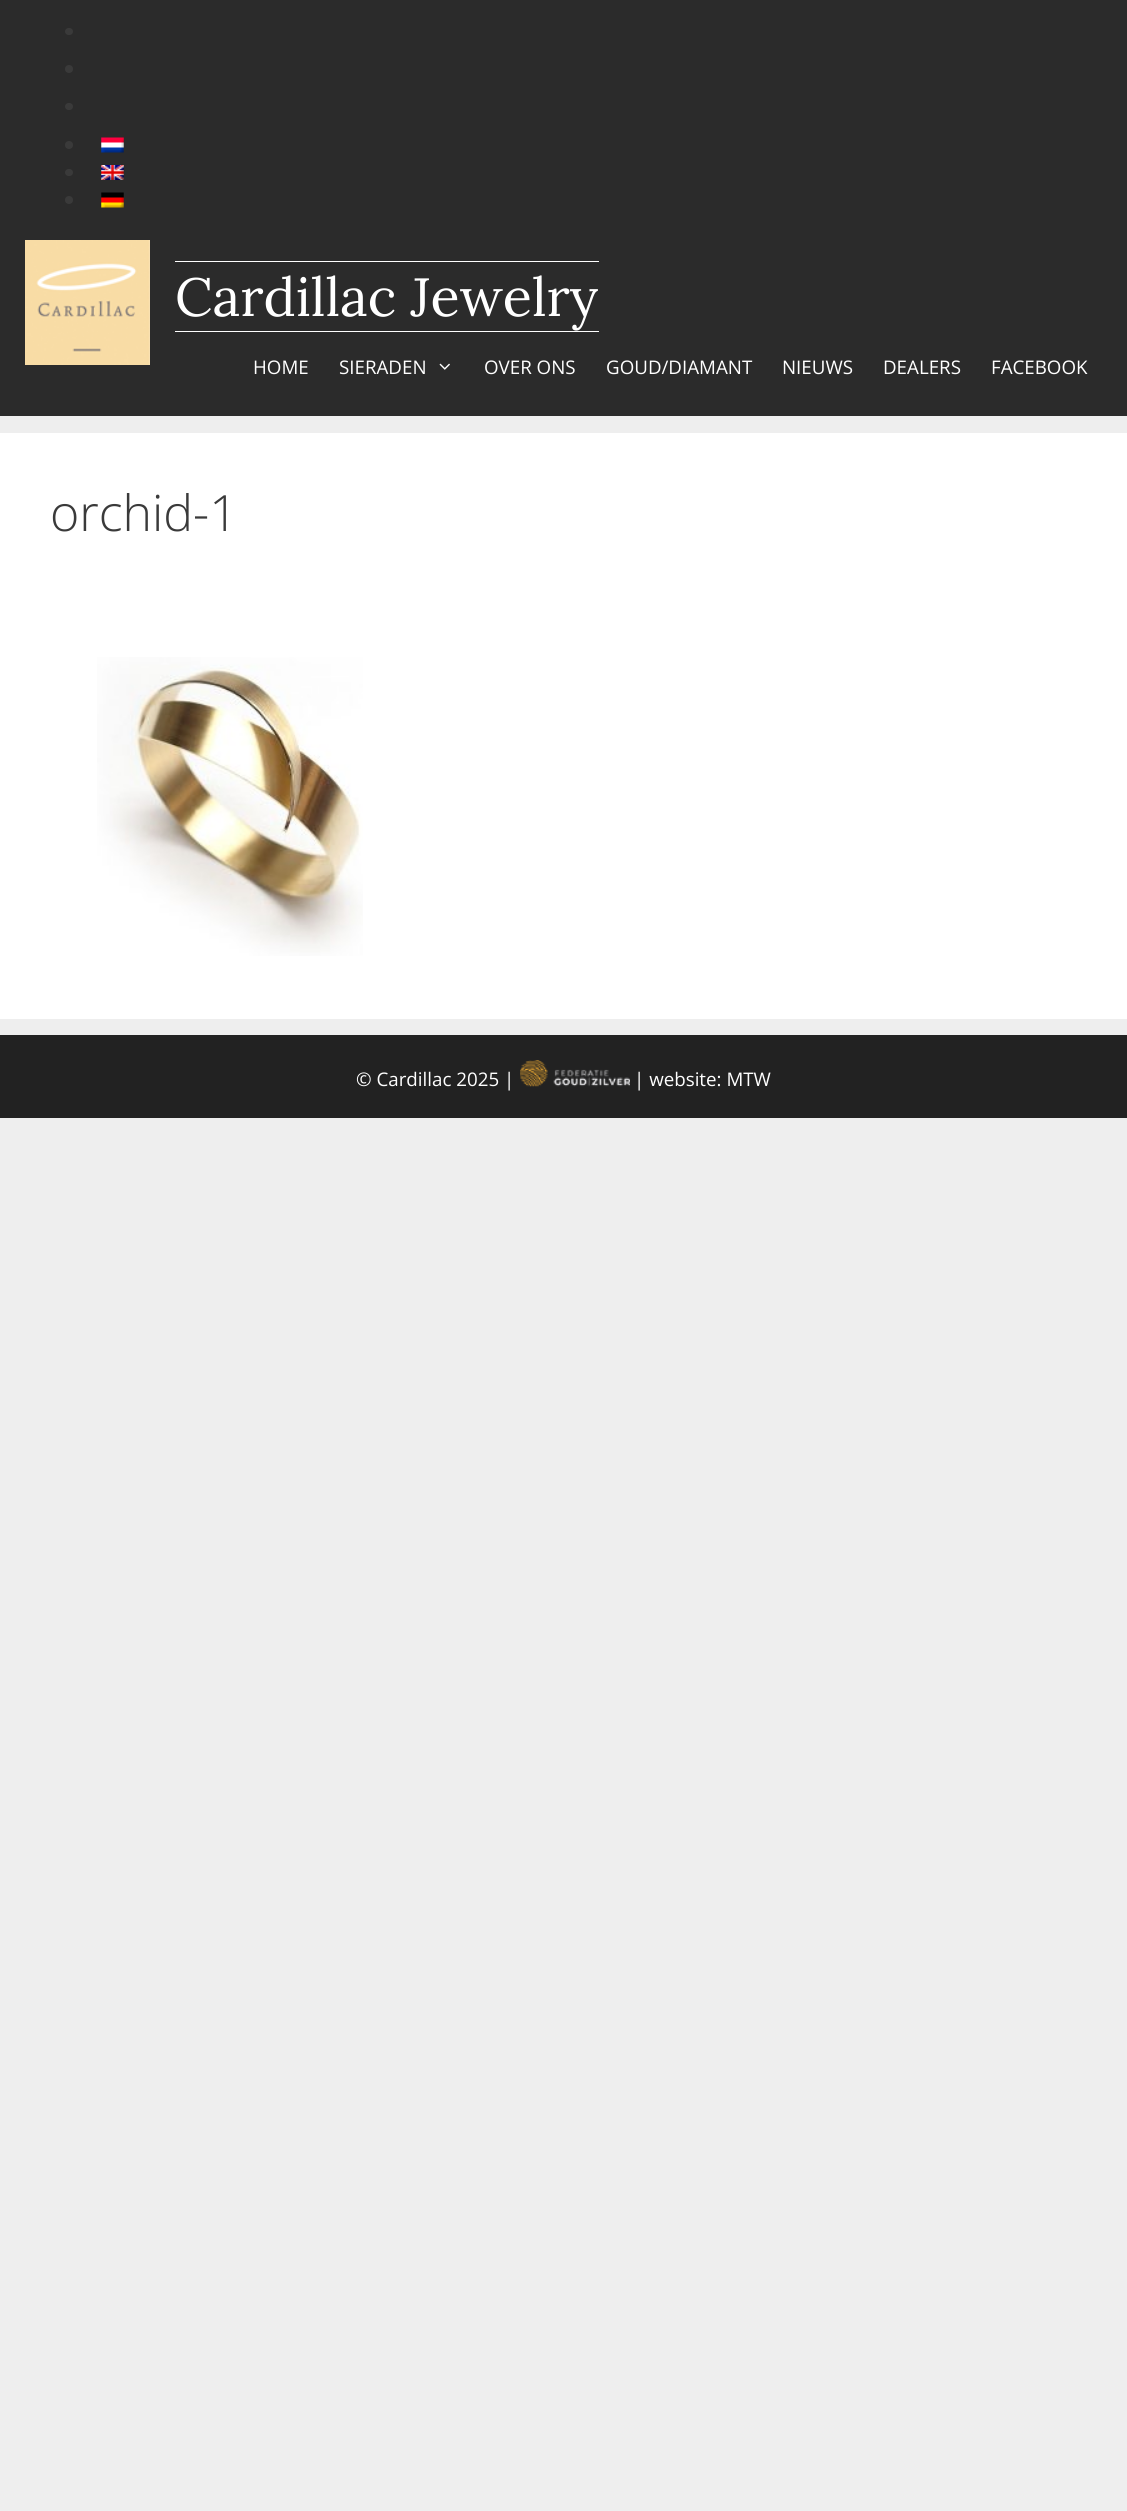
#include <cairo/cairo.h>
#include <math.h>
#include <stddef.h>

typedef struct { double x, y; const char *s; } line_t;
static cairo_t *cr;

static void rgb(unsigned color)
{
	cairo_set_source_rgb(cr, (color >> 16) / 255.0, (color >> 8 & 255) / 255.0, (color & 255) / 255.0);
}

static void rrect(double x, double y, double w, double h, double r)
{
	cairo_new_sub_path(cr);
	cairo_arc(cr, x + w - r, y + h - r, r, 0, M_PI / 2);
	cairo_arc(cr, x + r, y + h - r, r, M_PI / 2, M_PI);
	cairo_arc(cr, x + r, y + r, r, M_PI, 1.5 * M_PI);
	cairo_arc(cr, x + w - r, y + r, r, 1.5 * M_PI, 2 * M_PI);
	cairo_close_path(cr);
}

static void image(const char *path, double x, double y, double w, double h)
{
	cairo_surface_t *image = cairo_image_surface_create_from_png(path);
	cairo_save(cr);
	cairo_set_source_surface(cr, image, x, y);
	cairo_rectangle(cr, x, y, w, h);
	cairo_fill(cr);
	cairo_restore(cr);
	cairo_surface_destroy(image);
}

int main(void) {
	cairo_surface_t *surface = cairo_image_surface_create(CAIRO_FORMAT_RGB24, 1127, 2511);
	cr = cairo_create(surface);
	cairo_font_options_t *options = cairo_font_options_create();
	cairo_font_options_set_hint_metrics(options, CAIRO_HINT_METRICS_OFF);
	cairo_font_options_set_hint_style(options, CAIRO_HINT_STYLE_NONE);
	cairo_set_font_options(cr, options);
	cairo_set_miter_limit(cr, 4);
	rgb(0xeeeeee);
	cairo_paint(cr);
	rgb(0x2b2b2b);
	cairo_rectangle(cr, 0, 0, 1127, 416);
	cairo_fill(cr);
	rgb(0x3a3a3a);
	rrect(65, 28, 8, 7, 3.5);
	cairo_fill(cr);
	cairo_arc(cr, 69, 69, 4, 0, 2 * M_PI);
	cairo_fill(cr);
	rrect(65, 103, 8, 7, 3.5);
	cairo_fill(cr);
	cairo_arc(cr, 69, 145, 4, 0, 2 * M_PI);
	cairo_fill(cr);
	image("img/1.png", 101, 137, 23, 16);
	rrect(65, 169, 8, 7, 3.5);
	cairo_fill(cr);
	image("img/2.png", 101, 165, 23, 15);
	cairo_arc(cr, 69, 200, 4, 0, 2 * M_PI);
	cairo_fill(cr);
	image("img/3.png", 101, 192, 23, 16);
	image("img/4.png", 25, 240, 125, 125);
	rgb(0xffffff);
	cairo_rectangle(cr, 175, 261, 424, 1);
	cairo_fill(cr);
	cairo_rectangle(cr, 175, 331, 424, 1);
	cairo_fill(cr);
	image("img/5.png", 439, 363, 11, 7);
	cairo_rectangle(cr, 0, 433, 1127, 586);
	cairo_fill(cr);
	image("img/6.png", 97, 657, 266, 299);
	rgb(0x222222);
	cairo_rectangle(cr, 0, 1035, 1127, 83);
	cairo_fill(cr);
	image("img/7.png", 520, 1060, 110, 27);
	cairo_select_font_face(cr, "Lora", CAIRO_FONT_SLANT_NORMAL, CAIRO_FONT_WEIGHT_NORMAL);
	cairo_set_font_size(cr, 53.75);
	rgb(0xffffff);
	cairo_move_to(cr, 175, 316);
	cairo_show_text(cr, "Cardillac Jewelry");
	cairo_select_font_face(cr, "Open Sans", CAIRO_FONT_SLANT_NORMAL, CAIRO_FONT_WEIGHT_NORMAL);
	cairo_set_font_size(cr, 18.75);
	{
		static const line_t items[] = {
			{253, 374, "HOME"},
			{339, 374, "SIERADEN"},
			{484, 374, "OVER ONS"},
			{606, 374, "GOUD/DIAMANT"},
			{782, 374, "NIEUWS"},
			{883, 374, "DEALERS"},
			{991, 374, "FACEBOOK"},
		};
		for (size_t i = 0; i < sizeof items / sizeof *items; i++) {
			cairo_move_to(cr, items[i].x, items[i].y);
			cairo_show_text(cr, items[i].s);
		}
	}
	cairo_select_font_face(cr, "Open Sans Light", CAIRO_FONT_SLANT_NORMAL, CAIRO_FONT_WEIGHT_NORMAL);
	cairo_set_font_size(cr, 50);
	rgb(0x3a3a3a);
	cairo_move_to(cr, 50, 531);
	cairo_show_text(cr, "orchid-1");
	cairo_select_font_face(cr, "Open Sans", CAIRO_FONT_SLANT_NORMAL, CAIRO_FONT_WEIGHT_NORMAL);
	cairo_set_font_size(cr, 18.75);
	rgb(0xffffff);
	cairo_move_to(cr, 356, 1086);
	cairo_show_text(cr, "© Cardillac 2025 |");
	cairo_move_to(cr, 634, 1086);
	cairo_show_text(cr, "| website: MTW");
	cairo_surface_write_to_png(surface, "page.png");
	cairo_font_options_destroy(options);
	cairo_destroy(cr);
	cairo_surface_destroy(surface);
	return 0;
}
